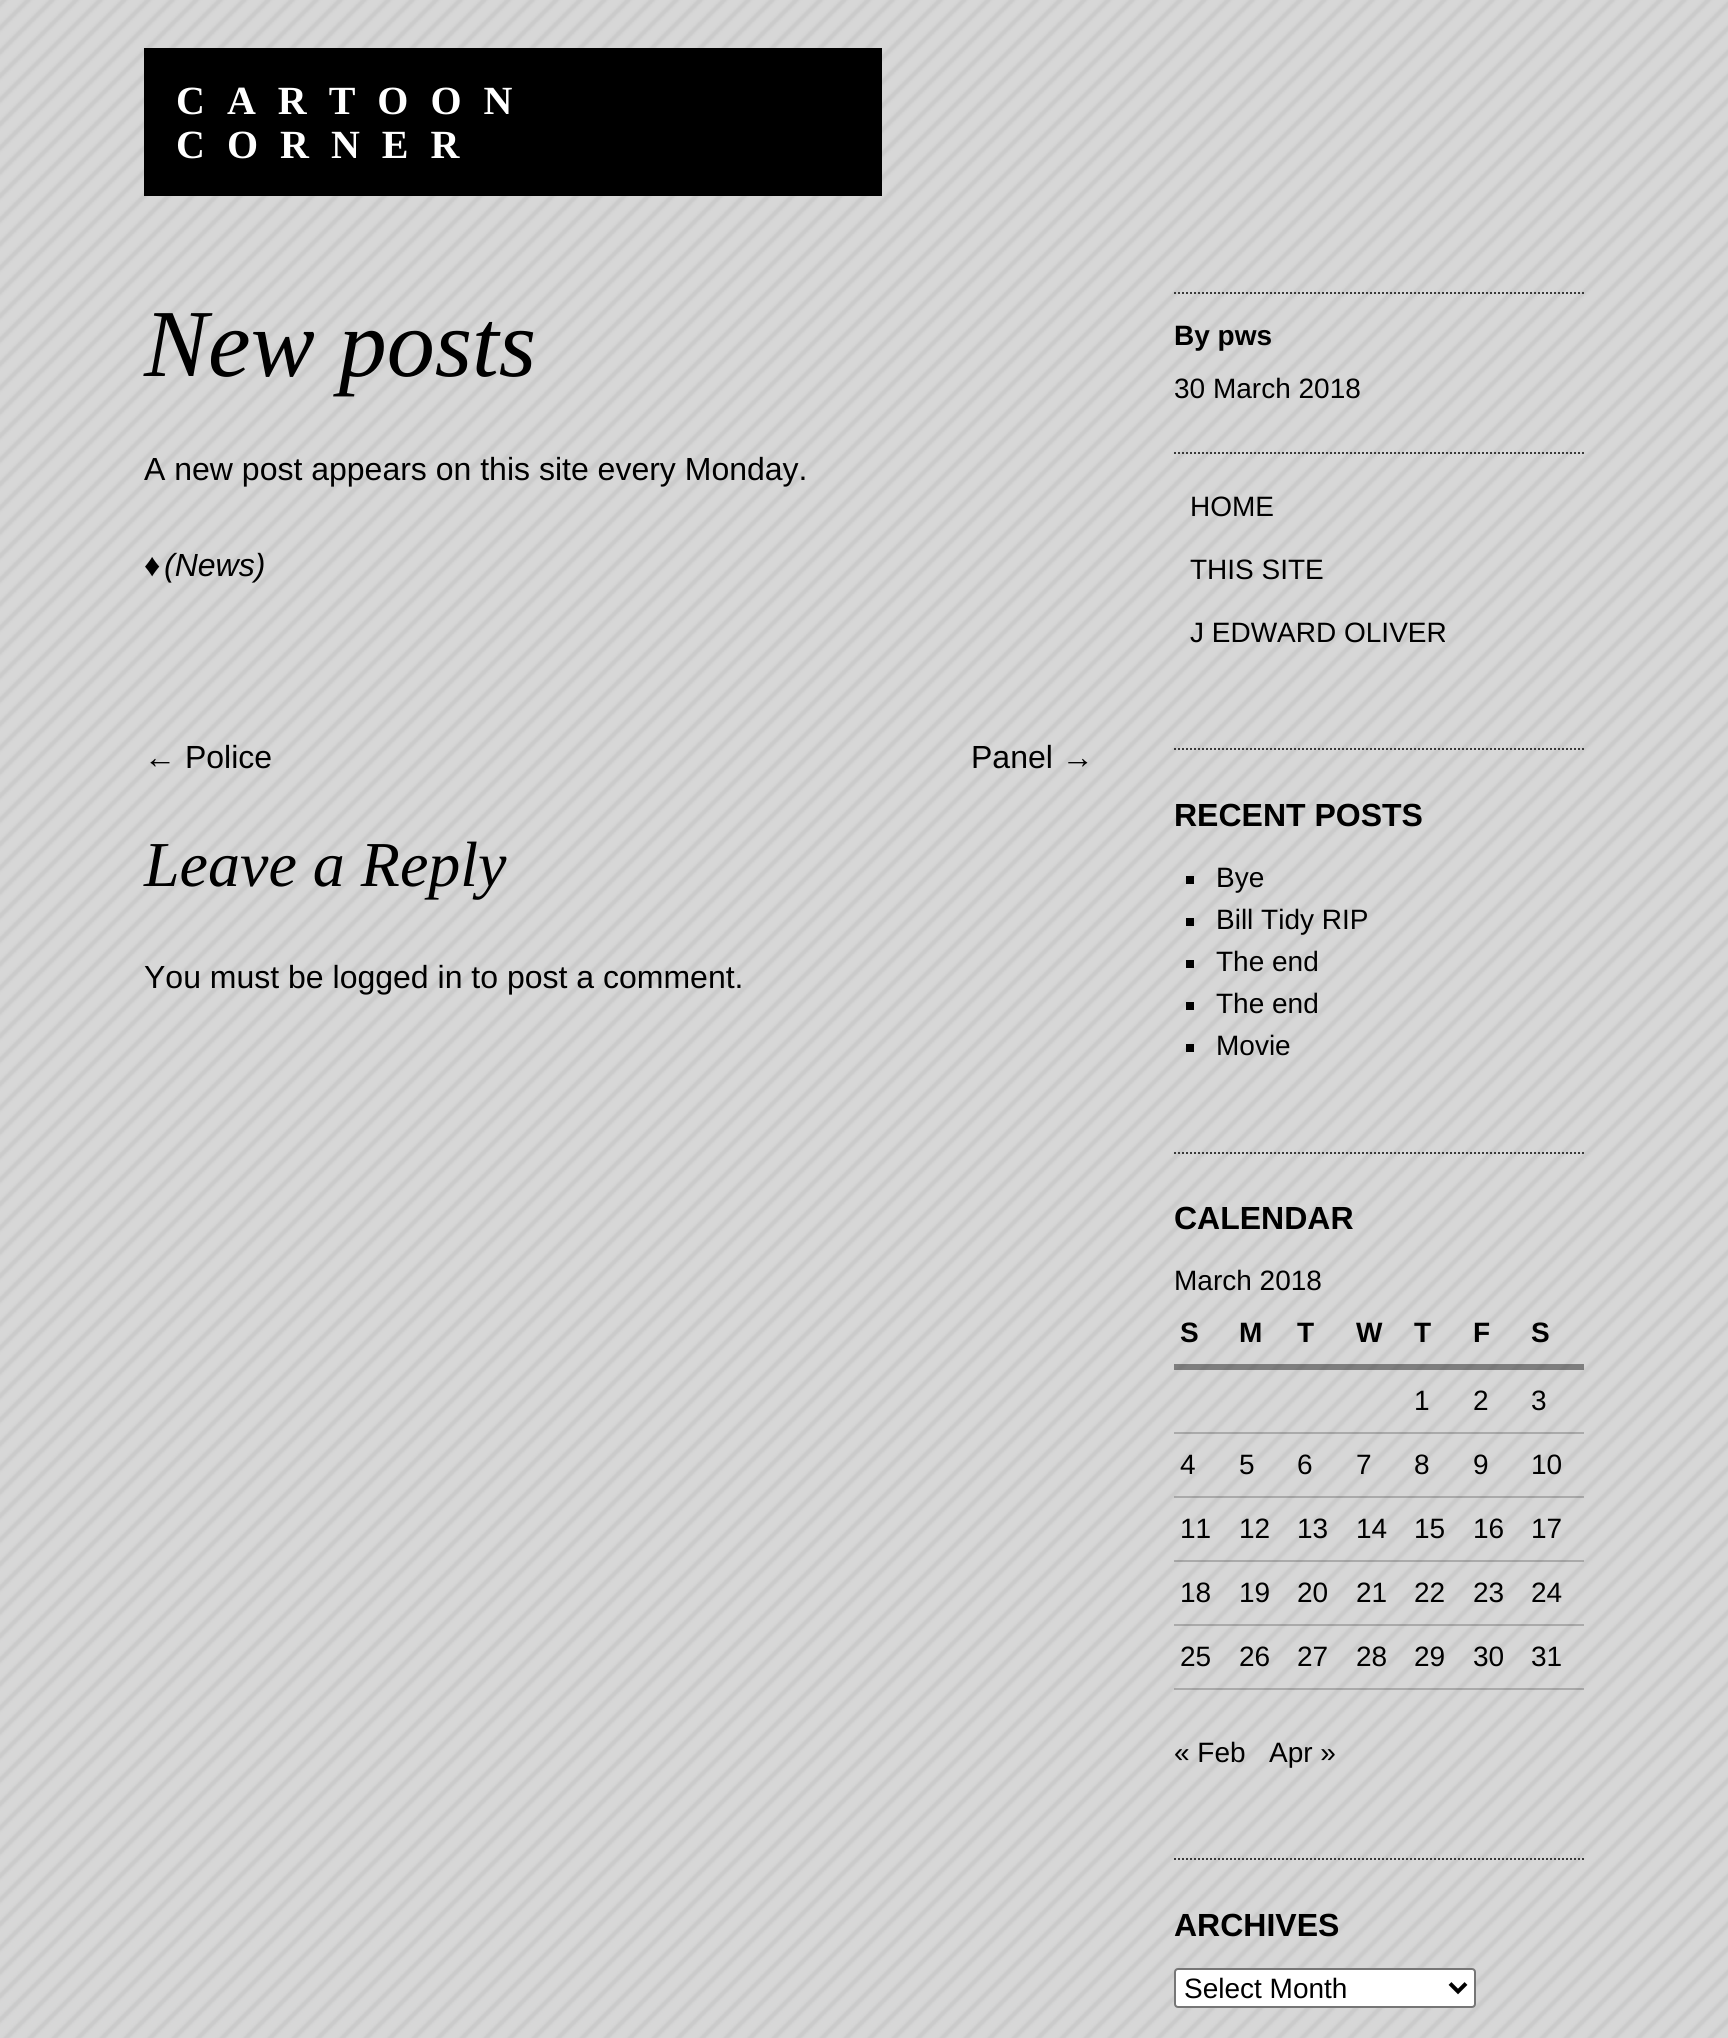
#include <cairo/cairo.h>
#include <math.h>
#include <stddef.h>

typedef struct { double x, y; const char *s; } line_t;
typedef struct { double x, y, w, h; unsigned color; } box_t;
static cairo_t *cr;

static void rgb(unsigned color)
{
	cairo_set_source_rgb(cr, (color >> 16) / 255.0, (color >> 8 & 255) / 255.0, (color & 255) / 255.0);
}

static void tracked(double x, double y, const char *s, double letter, double word)
{
	cairo_move_to(cr, x, y);
	while (*s) {
		char ch[5] = {0};
		int n = 0;
		do ch[n++] = *s++; while ((*s & 0xC0) == 0x80);
		cairo_show_text(cr, ch);
		cairo_rel_move_to(cr, letter + word * (*ch == ' '), 0);
	}
}

static void rrect(double x, double y, double w, double h, double r)
{
	cairo_new_sub_path(cr);
	cairo_arc(cr, x + w - r, y + h - r, r, 0, M_PI / 2);
	cairo_arc(cr, x + r, y + h - r, r, M_PI / 2, M_PI);
	cairo_arc(cr, x + r, y + r, r, M_PI, 1.5 * M_PI);
	cairo_arc(cr, x + w - r, y + r, r, 1.5 * M_PI, 2 * M_PI);
	cairo_close_path(cr);
}

static void image(const char *path, double x, double y, double w, double h)
{
	cairo_surface_t *image = cairo_image_surface_create_from_png(path);
	cairo_save(cr);
	cairo_set_source_surface(cr, image, x, y);
	cairo_rectangle(cr, x, y, w, h);
	cairo_fill(cr);
	cairo_restore(cr);
	cairo_surface_destroy(image);
}

int main(void) {
	cairo_surface_t *surface = cairo_image_surface_create(CAIRO_FORMAT_RGB24, 1728, 2038);
	cr = cairo_create(surface);
	cairo_font_options_t *options = cairo_font_options_create();
	cairo_font_options_set_hint_metrics(options, CAIRO_HINT_METRICS_OFF);
	cairo_font_options_set_hint_style(options, CAIRO_HINT_STYLE_NONE);
	cairo_set_font_options(cr, options);
	cairo_set_miter_limit(cr, 4);
	rgb(0xffffff);
	cairo_paint(cr);
	image("img/1.png", 0, 0, 1728, 2038);
	rgb(0x000000);
	cairo_rectangle(cr, 144, 48, 738, 148);
	cairo_fill(cr);
	cairo_new_path(cr);
	cairo_move_to(cr, 1174, 293);
	cairo_line_to(cr, 1584, 293);
	rgb(0x393939);
	cairo_set_dash(cr, (double[]){2, 2}, 2, 0);
	cairo_stroke(cr);
	cairo_new_path(cr);
	cairo_move_to(cr, 1174, 453);
	cairo_line_to(cr, 1584, 453);
	cairo_stroke(cr);
	cairo_new_path(cr);
	cairo_move_to(cr, 1174, 749);
	cairo_line_to(cr, 1584, 749);
	cairo_stroke(cr);
	{
		static const box_t items[] = {
			{1186, 876, 8, 8, 0x000000},
			{1186, 918, 8, 8, 0x000000},
			{1186, 960, 8, 8, 0x000000},
			{1186, 1002, 8, 8, 0x000000},
			{1186, 1044, 8, 8, 0x000000},
		};
		for (size_t i = 0; i < sizeof items / sizeof *items; i++) {
			rgb(items[i].color);
			cairo_rectangle(cr, items[i].x, items[i].y, items[i].w, items[i].h);
			cairo_fill(cr);
		}
	}
	cairo_new_path(cr);
	cairo_move_to(cr, 1174, 1153);
	cairo_line_to(cr, 1584, 1153);
	rgb(0x393939);
	cairo_stroke(cr);
	cairo_set_source_rgba(cr, 0.153, 0.153, 0.153, 0.5);
	cairo_rectangle(cr, 1174, 1364, 58, 6);
	cairo_fill(cr);
	cairo_rectangle(cr, 1232, 1364, 60, 6);
	cairo_fill(cr);
	cairo_rectangle(cr, 1292, 1364, 58, 6);
	cairo_fill(cr);
	cairo_rectangle(cr, 1350, 1364, 58, 6);
	cairo_fill(cr);
	cairo_rectangle(cr, 1408, 1364, 58, 6);
	cairo_fill(cr);
	cairo_rectangle(cr, 1466, 1364, 60, 6);
	cairo_fill(cr);
	cairo_rectangle(cr, 1526, 1364, 58, 6);
	cairo_fill(cr);
	cairo_set_source_rgba(cr, 0.153, 0.153, 0.153, 0.25);
	cairo_rectangle(cr, 1408, 1432, 58, 2);
	cairo_fill(cr);
	cairo_rectangle(cr, 1466, 1432, 60, 2);
	cairo_fill(cr);
	cairo_rectangle(cr, 1526, 1432, 58, 2);
	cairo_fill(cr);
	cairo_rectangle(cr, 1174, 1432, 234, 2);
	cairo_fill(cr);
	cairo_rectangle(cr, 1174, 1496, 58, 2);
	cairo_fill(cr);
	cairo_rectangle(cr, 1232, 1496, 60, 2);
	cairo_fill(cr);
	cairo_rectangle(cr, 1292, 1496, 58, 2);
	cairo_fill(cr);
	cairo_rectangle(cr, 1350, 1496, 58, 2);
	cairo_fill(cr);
	cairo_rectangle(cr, 1408, 1496, 58, 2);
	cairo_fill(cr);
	cairo_rectangle(cr, 1466, 1496, 60, 2);
	cairo_fill(cr);
	cairo_rectangle(cr, 1526, 1496, 58, 2);
	cairo_fill(cr);
	cairo_rectangle(cr, 1174, 1560, 58, 2);
	cairo_fill(cr);
	cairo_rectangle(cr, 1232, 1560, 60, 2);
	cairo_fill(cr);
	cairo_rectangle(cr, 1292, 1560, 58, 2);
	cairo_fill(cr);
	cairo_rectangle(cr, 1350, 1560, 58, 2);
	cairo_fill(cr);
	cairo_rectangle(cr, 1408, 1560, 58, 2);
	cairo_fill(cr);
	cairo_rectangle(cr, 1466, 1560, 60, 2);
	cairo_fill(cr);
	cairo_rectangle(cr, 1526, 1560, 58, 2);
	cairo_fill(cr);
	cairo_rectangle(cr, 1174, 1624, 58, 2);
	cairo_fill(cr);
	cairo_rectangle(cr, 1232, 1624, 60, 2);
	cairo_fill(cr);
	cairo_rectangle(cr, 1292, 1624, 58, 2);
	cairo_fill(cr);
	cairo_rectangle(cr, 1350, 1624, 58, 2);
	cairo_fill(cr);
	cairo_rectangle(cr, 1408, 1624, 58, 2);
	cairo_fill(cr);
	cairo_rectangle(cr, 1466, 1624, 60, 2);
	cairo_fill(cr);
	cairo_rectangle(cr, 1526, 1624, 58, 2);
	cairo_fill(cr);
	cairo_rectangle(cr, 1174, 1688, 58, 2);
	cairo_fill(cr);
	cairo_rectangle(cr, 1232, 1688, 60, 2);
	cairo_fill(cr);
	cairo_rectangle(cr, 1292, 1688, 58, 2);
	cairo_fill(cr);
	cairo_rectangle(cr, 1350, 1688, 58, 2);
	cairo_fill(cr);
	cairo_rectangle(cr, 1408, 1688, 58, 2);
	cairo_fill(cr);
	cairo_rectangle(cr, 1466, 1688, 60, 2);
	cairo_fill(cr);
	cairo_rectangle(cr, 1526, 1688, 58, 2);
	cairo_fill(cr);
	cairo_new_path(cr);
	cairo_move_to(cr, 1174, 1859);
	cairo_line_to(cr, 1584, 1859);
	rgb(0x393939);
	cairo_stroke(cr);
	rgb(0xffffff);
	rrect(1175, 1969, 300, 38, 3);
	cairo_fill_preserve(cr);
	rgb(0x767676);
	cairo_set_dash(cr, NULL, 0, 0);
	cairo_stroke(cr);
	cairo_new_path(cr);
	cairo_move_to(cr, 1450, 1983.5);
	cairo_line_to(cr, 1458, 1991.5);
	cairo_line_to(cr, 1466, 1983.5);
	rgb(0x000000);
	cairo_set_line_width(cr, 4);
	cairo_stroke(cr);
	cairo_select_font_face(cr, "Liberation Serif", CAIRO_FONT_SLANT_NORMAL, CAIRO_FONT_WEIGHT_BOLD);
	cairo_set_font_size(cr, 40);
	rgb(0xffffff);
	tracked(176, 114, "CARTOON", 22, 0);
	tracked(176, 158, "CORNER", 22, 0);
	cairo_select_font_face(cr, "Liberation Serif", CAIRO_FONT_SLANT_ITALIC, CAIRO_FONT_WEIGHT_NORMAL);
	cairo_set_font_size(cr, 96);
	rgb(0x000000);
	cairo_move_to(cr, 144, 376);
	cairo_show_text(cr, "New posts");
	cairo_select_font_face(cr, "Liberation Sans", CAIRO_FONT_SLANT_NORMAL, CAIRO_FONT_WEIGHT_BOLD);
	cairo_set_font_size(cr, 28);
	cairo_move_to(cr, 1174, 345);
	cairo_show_text(cr, "By pws");
	cairo_select_font_face(cr, "Liberation Sans", CAIRO_FONT_SLANT_NORMAL, CAIRO_FONT_WEIGHT_NORMAL);
	cairo_move_to(cr, 1174, 398);
	cairo_show_text(cr, "30 March 2018");
	cairo_set_font_size(cr, 32);
	cairo_move_to(cr, 144, 480);
	cairo_show_text(cr, "A new post appears on this site every Monday.");
	cairo_select_font_face(cr, "Liberation Sans", CAIRO_FONT_SLANT_ITALIC, CAIRO_FONT_WEIGHT_NORMAL);
	cairo_move_to(cr, 144, 576);
	cairo_show_text(cr, "♦");
	cairo_move_to(cr, 164, 576);
	cairo_show_text(cr, "(News)");
	cairo_select_font_face(cr, "Liberation Sans", CAIRO_FONT_SLANT_NORMAL, CAIRO_FONT_WEIGHT_NORMAL);
	cairo_move_to(cr, 144, 768);
	cairo_show_text(cr, "← Police");
	cairo_move_to(cr, 971, 768);
	cairo_show_text(cr, "Panel →");
	cairo_select_font_face(cr, "Liberation Serif", CAIRO_FONT_SLANT_ITALIC, CAIRO_FONT_WEIGHT_NORMAL);
	cairo_set_font_size(cr, 64);
	cairo_move_to(cr, 144, 886);
	cairo_show_text(cr, "Leave a Reply");
	cairo_select_font_face(cr, "Liberation Sans", CAIRO_FONT_SLANT_NORMAL, CAIRO_FONT_WEIGHT_NORMAL);
	cairo_set_font_size(cr, 32);
	cairo_move_to(cr, 144, 988);
	cairo_show_text(cr, "You must be logged in to post a comment.");
	cairo_set_font_size(cr, 28);
	{
		static const line_t items[] = {
			{1190, 516, "HOME"},
			{1190, 579, "THIS SITE"},
			{1190, 642, "J EDWARD OLIVER"},
		};
		for (size_t i = 0; i < sizeof items / sizeof *items; i++) {
			cairo_move_to(cr, items[i].x, items[i].y);
			cairo_show_text(cr, items[i].s);
		}
	}
	cairo_select_font_face(cr, "Liberation Sans", CAIRO_FONT_SLANT_NORMAL, CAIRO_FONT_WEIGHT_BOLD);
	cairo_set_font_size(cr, 32);
	cairo_move_to(cr, 1174, 826);
	cairo_show_text(cr, "RECENT POSTS");
	cairo_select_font_face(cr, "Liberation Sans", CAIRO_FONT_SLANT_NORMAL, CAIRO_FONT_WEIGHT_NORMAL);
	cairo_set_font_size(cr, 28);
	{
		static const line_t items[] = {
			{1216, 887, "Bye"},
			{1216, 929, "Bill Tidy RIP"},
			{1216, 971, "The end"},
			{1216, 1013, "The end"},
			{1216, 1055, "Movie"},
		};
		for (size_t i = 0; i < sizeof items / sizeof *items; i++) {
			cairo_move_to(cr, items[i].x, items[i].y);
			cairo_show_text(cr, items[i].s);
		}
	}
	cairo_select_font_face(cr, "Liberation Sans", CAIRO_FONT_SLANT_NORMAL, CAIRO_FONT_WEIGHT_BOLD);
	cairo_set_font_size(cr, 32);
	cairo_move_to(cr, 1174, 1229);
	cairo_show_text(cr, "CALENDAR");
	cairo_select_font_face(cr, "Liberation Sans", CAIRO_FONT_SLANT_NORMAL, CAIRO_FONT_WEIGHT_NORMAL);
	cairo_set_font_size(cr, 28);
	cairo_move_to(cr, 1174, 1290);
	cairo_show_text(cr, "March 2018");
	cairo_select_font_face(cr, "Liberation Sans", CAIRO_FONT_SLANT_NORMAL, CAIRO_FONT_WEIGHT_BOLD);
	{
		static const line_t items[] = {
			{1180, 1342, "S"},
			{1239, 1342, "M"},
			{1297, 1342, "T"},
			{1356, 1342, "W"},
			{1414, 1342, "T"},
			{1473, 1342, "F"},
			{1531, 1342, "S"},
		};
		for (size_t i = 0; i < sizeof items / sizeof *items; i++) {
			cairo_move_to(cr, items[i].x, items[i].y);
			cairo_show_text(cr, items[i].s);
		}
	}
	cairo_select_font_face(cr, "Liberation Sans", CAIRO_FONT_SLANT_NORMAL, CAIRO_FONT_WEIGHT_NORMAL);
	{
		static const line_t items[] = {
			{1414, 1410, "1"},
			{1473, 1410, "2"},
			{1531, 1410, "3"},
			{1180, 1474, "4"},
			{1239, 1474, "5"},
			{1297, 1474, "6"},
			{1356, 1474, "7"},
			{1414, 1474, "8"},
			{1473, 1474, "9"},
			{1531, 1474, "10"},
			{1180, 1538, "11"},
			{1239, 1538, "12"},
			{1297, 1538, "13"},
			{1356, 1538, "14"},
			{1414, 1538, "15"},
			{1473, 1538, "16"},
			{1531, 1538, "17"},
			{1180, 1602, "18"},
			{1239, 1602, "19"},
			{1297, 1602, "20"},
			{1356, 1602, "21"},
			{1414, 1602, "22"},
			{1473, 1602, "23"},
			{1531, 1602, "24"},
			{1180, 1666, "25"},
			{1239, 1666, "26"},
			{1297, 1666, "27"},
			{1356, 1666, "28"},
			{1414, 1666, "29"},
			{1473, 1666, "30"},
			{1531, 1666, "31"},
			{1174, 1762, "« Feb"},
			{1269, 1762, "Apr »"},
		};
		for (size_t i = 0; i < sizeof items / sizeof *items; i++) {
			cairo_move_to(cr, items[i].x, items[i].y);
			cairo_show_text(cr, items[i].s);
		}
	}
	cairo_select_font_face(cr, "Liberation Sans", CAIRO_FONT_SLANT_NORMAL, CAIRO_FONT_WEIGHT_BOLD);
	cairo_set_font_size(cr, 32);
	cairo_move_to(cr, 1174, 1936);
	cairo_show_text(cr, "ARCHIVES");
	cairo_select_font_face(cr, "Liberation Sans", CAIRO_FONT_SLANT_NORMAL, CAIRO_FONT_WEIGHT_NORMAL);
	cairo_set_font_size(cr, 28);
	cairo_move_to(cr, 1184, 1998);
	cairo_show_text(cr, "Select Month");
	cairo_surface_write_to_png(surface, "page.png");
	cairo_font_options_destroy(options);
	cairo_destroy(cr);
	cairo_surface_destroy(surface);
	return 0;
}
